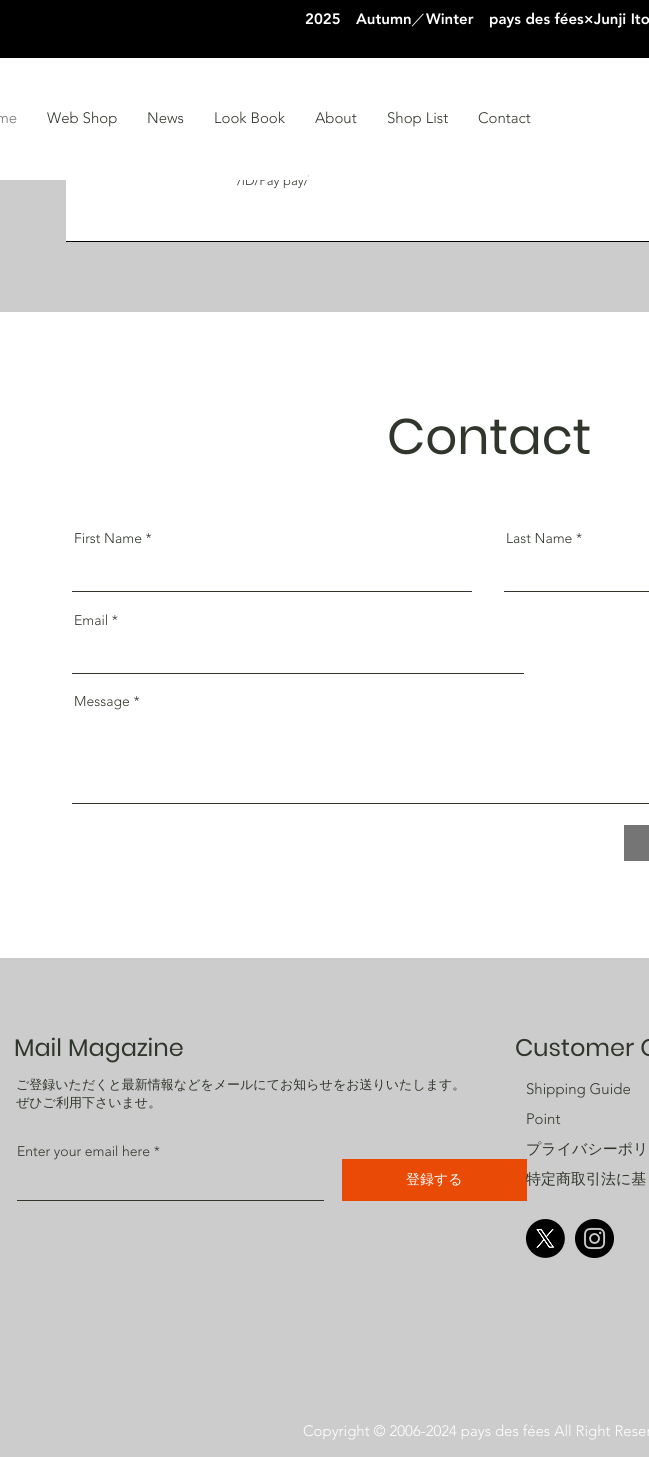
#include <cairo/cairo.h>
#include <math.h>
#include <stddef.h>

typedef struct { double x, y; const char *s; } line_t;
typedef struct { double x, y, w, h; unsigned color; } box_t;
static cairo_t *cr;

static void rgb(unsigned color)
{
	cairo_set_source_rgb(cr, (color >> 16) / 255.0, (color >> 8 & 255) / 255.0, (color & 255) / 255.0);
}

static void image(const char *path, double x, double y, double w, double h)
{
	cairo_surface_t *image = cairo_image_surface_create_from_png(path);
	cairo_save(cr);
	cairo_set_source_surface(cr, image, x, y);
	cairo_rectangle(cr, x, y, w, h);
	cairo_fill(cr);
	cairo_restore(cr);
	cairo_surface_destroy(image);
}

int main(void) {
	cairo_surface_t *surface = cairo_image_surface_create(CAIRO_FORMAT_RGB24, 649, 1457);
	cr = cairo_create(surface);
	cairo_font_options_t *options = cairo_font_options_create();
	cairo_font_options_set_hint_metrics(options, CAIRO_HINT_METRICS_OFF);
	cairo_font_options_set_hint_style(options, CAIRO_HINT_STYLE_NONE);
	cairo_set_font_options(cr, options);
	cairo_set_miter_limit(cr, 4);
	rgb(0xffffff);
	cairo_paint(cr);
	{
		static const box_t items[] = {
			{0, 0, 649, 58, 0x000000},
			{0, 180, 649, 132, 0xcccccc},
			{66, 180, 583, 61, 0xffffff},
			{66, 241, 583, 1, 0x000000},
			{72, 591, 400, 1, 0x30362c},
			{504, 591, 145, 1, 0x30362c},
			{72, 673, 452, 1, 0x30362c},
			{72, 803, 577, 1, 0x30362c},
			{624, 825, 25, 36, 0x757575},
			{0, 958, 649, 499, 0xcccccc},
			{17, 1200, 307, 1, 0x30362c},
			{342, 1159, 185, 42, 0xe94a05},
		};
		for (size_t i = 0; i < sizeof items / sizeof *items; i++) {
			rgb(items[i].color);
			cairo_rectangle(cr, items[i].x, items[i].y, items[i].w, items[i].h);
			cairo_fill(cr);
		}
	}
	image("img/1.png", 526, 1219, 39, 39);
	image("img/2.png", 575, 1219, 39, 39);
	cairo_select_font_face(cr, "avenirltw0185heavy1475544 Black", CAIRO_FONT_SLANT_NORMAL, CAIRO_FONT_WEIGHT_NORMAL);
	cairo_set_font_size(cr, 15);
	rgb(0xffffff);
	cairo_move_to(cr, 305, 24);
	cairo_show_text(cr, "2025");
	cairo_move_to(cr, 356, 24);
	cairo_show_text(cr, "Autumn");
	cairo_select_font_face(cr, "WenQuanYi Zen Hei Medium", CAIRO_FONT_SLANT_NORMAL, CAIRO_FONT_WEIGHT_NORMAL);
	cairo_move_to(cr, 411, 24);
	cairo_show_text(cr, "／");
	cairo_select_font_face(cr, "avenirltw0185heavy1475544 Black", CAIRO_FONT_SLANT_NORMAL, CAIRO_FONT_WEIGHT_NORMAL);
	cairo_move_to(cr, 426, 24);
	cairo_show_text(cr, "Winter");
	cairo_move_to(cr, 489, 24);
	cairo_show_text(cr, "pays des fées×Junji Ito");
	cairo_select_font_face(cr, "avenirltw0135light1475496 Light", CAIRO_FONT_SLANT_NORMAL, CAIRO_FONT_WEIGHT_NORMAL);
	rgb(0x757575);
	cairo_move_to(cr, -4, 123);
	cairo_show_text(cr, "me");
	rgb(0x30362c);
	{
		static const line_t items[] = {
			{47, 123, "Web Shop"},
			{147, 123, "News"},
			{214, 123, "Look Book"},
			{315, 123, "About"},
			{387, 123, "Shop List"},
			{478, 123, "Contact"},
		};
		for (size_t i = 0; i < sizeof items / sizeof *items; i++) {
			cairo_move_to(cr, items[i].x, items[i].y);
			cairo_show_text(cr, items[i].s);
		}
	}
	cairo_set_font_size(cr, 13);
	cairo_move_to(cr, 237, 185);
	cairo_show_text(cr, "/iD/Pay pay/");
	rgb(0xffffff);
	cairo_rectangle(cr, 238, 175, 70, 5);
	cairo_fill(cr);
	cairo_select_font_face(cr, "Poppins", CAIRO_FONT_SLANT_NORMAL, CAIRO_FONT_WEIGHT_NORMAL);
	cairo_set_font_size(cr, 50);
	rgb(0x30362c);
	cairo_move_to(cr, 387, 454);
	cairo_show_text(cr, "Contact");
	cairo_select_font_face(cr, "avenirltw0135light1475496 Light", CAIRO_FONT_SLANT_NORMAL, CAIRO_FONT_WEIGHT_NORMAL);
	cairo_set_font_size(cr, 14);
	{
		static const line_t items[] = {
			{74, 543, "First Name *"},
			{506, 543, "Last Name *"},
			{74, 625, "Email *"},
			{74, 706, "Message *"},
		};
		for (size_t i = 0; i < sizeof items / sizeof *items; i++) {
			cairo_move_to(cr, items[i].x, items[i].y);
			cairo_show_text(cr, items[i].s);
		}
	}
	cairo_select_font_face(cr, "Poppins", CAIRO_FONT_SLANT_NORMAL, CAIRO_FONT_WEIGHT_NORMAL);
	cairo_set_font_size(cr, 24);
	cairo_move_to(cr, 14, 1056);
	cairo_show_text(cr, "Mail Magazine");
	cairo_select_font_face(cr, "WenQuanYi Zen Hei Medium", CAIRO_FONT_SLANT_NORMAL, CAIRO_FONT_WEIGHT_NORMAL);
	cairo_set_font_size(cr, 13);
	cairo_move_to(cr, 16, 1089);
	cairo_show_text(cr, "ご登録いただくと最新情報などをメールにてお知らせをお送りいたします。");
	cairo_move_to(cr, 16, 1107);
	cairo_show_text(cr, "ぜひご利用下さいませ。");
	cairo_select_font_face(cr, "avenirltw0135light1475496 Light", CAIRO_FONT_SLANT_NORMAL, CAIRO_FONT_WEIGHT_NORMAL);
	cairo_set_font_size(cr, 14);
	cairo_move_to(cr, 17, 1156);
	cairo_show_text(cr, "Enter your email here *");
	cairo_select_font_face(cr, "WenQuanYi Zen Hei Medium", CAIRO_FONT_SLANT_NORMAL, CAIRO_FONT_WEIGHT_NORMAL);
	rgb(0xffffff);
	cairo_move_to(cr, 406, 1184);
	cairo_show_text(cr, "登録する");
	cairo_select_font_face(cr, "Poppins", CAIRO_FONT_SLANT_NORMAL, CAIRO_FONT_WEIGHT_NORMAL);
	cairo_set_font_size(cr, 24);
	rgb(0x30362c);
	cairo_move_to(cr, 515, 1056);
	cairo_show_text(cr, "Customer C");
	cairo_select_font_face(cr, "avenirltw0135light1475496 Light", CAIRO_FONT_SLANT_NORMAL, CAIRO_FONT_WEIGHT_NORMAL);
	cairo_set_font_size(cr, 15);
	cairo_move_to(cr, 526, 1094);
	cairo_show_text(cr, "Shipping Guide");
	cairo_move_to(cr, 526, 1124);
	cairo_show_text(cr, "Point");
	cairo_select_font_face(cr, "WenQuanYi Zen Hei Medium", CAIRO_FONT_SLANT_NORMAL, CAIRO_FONT_WEIGHT_NORMAL);
	cairo_move_to(cr, 526, 1154);
	cairo_show_text(cr, "プライバシーポリ");
	cairo_move_to(cr, 526, 1184);
	cairo_show_text(cr, "特定商取引法に基");
	cairo_select_font_face(cr, "avenirltw0135light1475496 Light", CAIRO_FONT_SLANT_NORMAL, CAIRO_FONT_WEIGHT_NORMAL);
	rgb(0xffffff);
	cairo_move_to(cr, 303, 1436);
	cairo_show_text(cr, "Copyright © 2006-2024 pays des fées All Right Reser");
	cairo_surface_write_to_png(surface, "page.png");
	cairo_font_options_destroy(options);
	cairo_destroy(cr);
	cairo_surface_destroy(surface);
	return 0;
}
